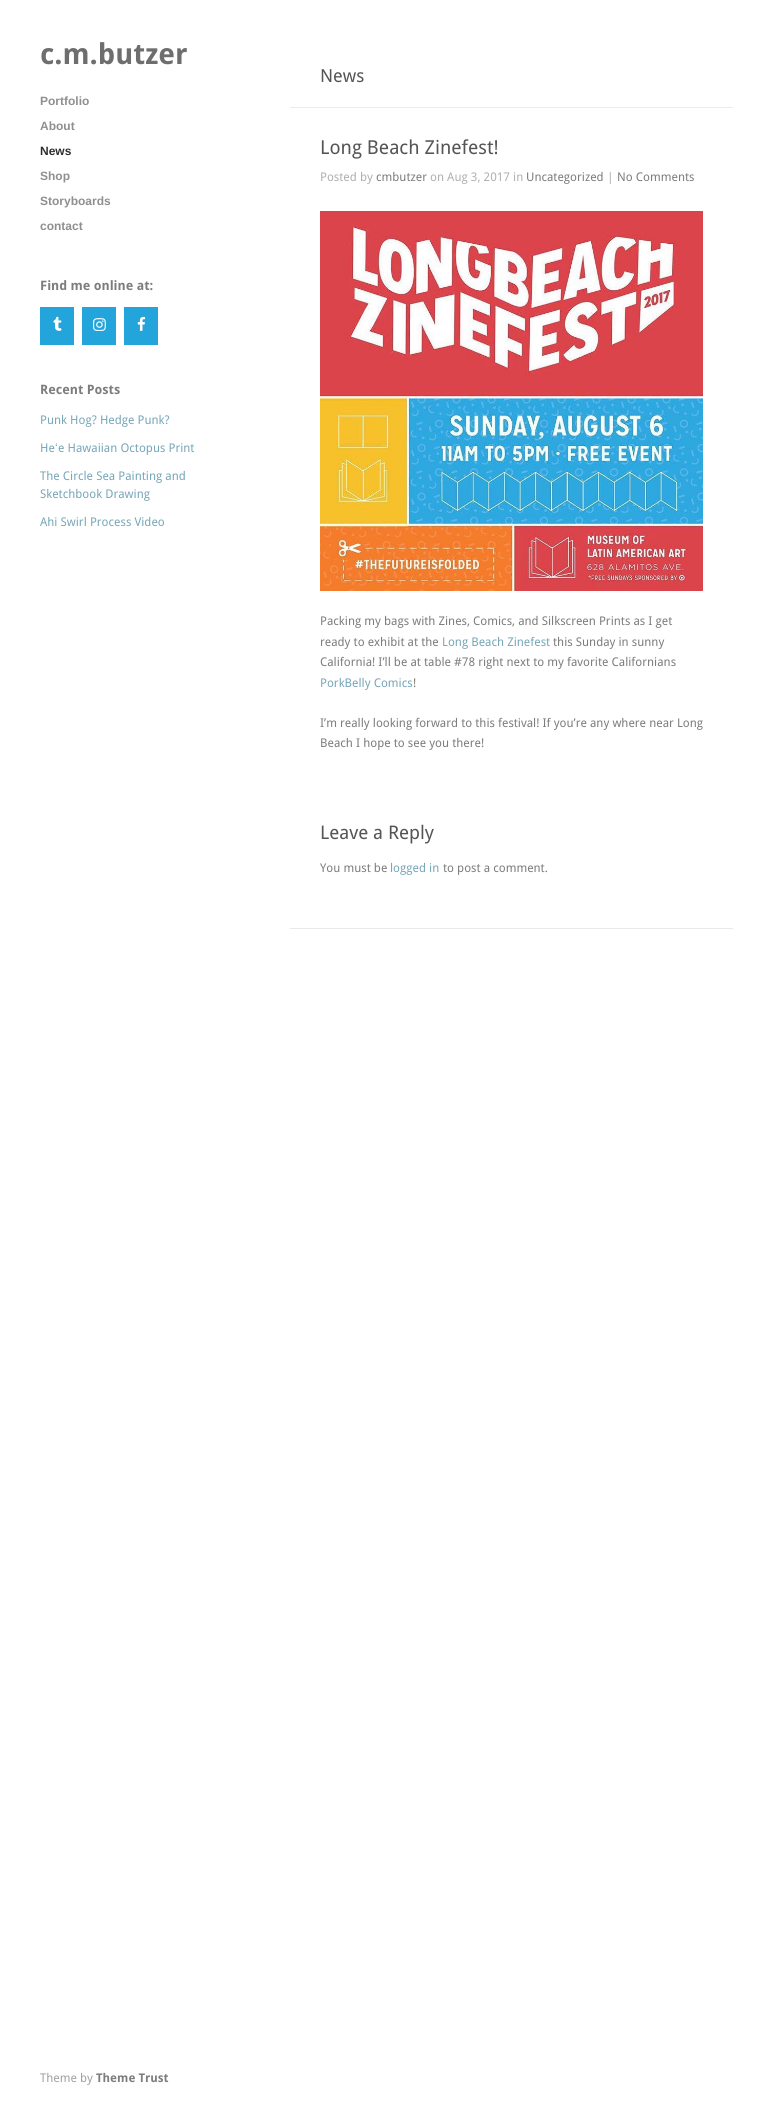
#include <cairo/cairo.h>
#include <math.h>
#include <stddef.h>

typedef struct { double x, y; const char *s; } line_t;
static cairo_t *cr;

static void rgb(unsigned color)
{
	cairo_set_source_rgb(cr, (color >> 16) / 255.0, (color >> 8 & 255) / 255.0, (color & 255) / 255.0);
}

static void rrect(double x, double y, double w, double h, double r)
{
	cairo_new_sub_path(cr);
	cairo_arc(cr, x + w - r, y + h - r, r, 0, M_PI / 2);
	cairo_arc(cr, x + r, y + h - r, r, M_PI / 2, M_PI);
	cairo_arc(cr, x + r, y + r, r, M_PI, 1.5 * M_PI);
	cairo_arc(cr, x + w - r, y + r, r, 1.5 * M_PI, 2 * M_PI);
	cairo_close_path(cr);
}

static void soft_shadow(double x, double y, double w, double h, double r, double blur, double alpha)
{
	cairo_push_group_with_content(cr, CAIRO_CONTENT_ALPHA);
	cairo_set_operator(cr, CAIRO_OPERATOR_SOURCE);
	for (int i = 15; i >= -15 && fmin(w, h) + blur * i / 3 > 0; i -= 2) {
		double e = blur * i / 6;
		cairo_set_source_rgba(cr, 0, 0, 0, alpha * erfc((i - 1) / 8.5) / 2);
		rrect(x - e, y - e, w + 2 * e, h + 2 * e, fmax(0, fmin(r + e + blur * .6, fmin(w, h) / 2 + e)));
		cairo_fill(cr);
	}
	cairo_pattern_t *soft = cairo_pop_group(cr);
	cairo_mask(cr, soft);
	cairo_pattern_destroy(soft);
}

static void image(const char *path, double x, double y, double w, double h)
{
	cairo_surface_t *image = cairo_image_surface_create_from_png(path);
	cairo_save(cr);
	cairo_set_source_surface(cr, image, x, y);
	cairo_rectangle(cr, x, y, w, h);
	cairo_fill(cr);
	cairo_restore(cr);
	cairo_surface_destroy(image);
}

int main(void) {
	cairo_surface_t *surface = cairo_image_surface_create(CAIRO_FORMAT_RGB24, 773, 2118);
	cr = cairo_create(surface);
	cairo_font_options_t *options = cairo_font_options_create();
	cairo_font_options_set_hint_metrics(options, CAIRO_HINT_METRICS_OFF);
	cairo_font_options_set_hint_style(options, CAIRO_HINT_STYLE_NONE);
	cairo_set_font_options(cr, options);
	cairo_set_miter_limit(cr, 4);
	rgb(0xffffff);
	cairo_paint(cr);
	rgb(0x23a4db);
	cairo_rectangle(cr, 40, 307, 34, 38);
	cairo_fill(cr);
	image("img/1.png", 53, 316, 9, 15);
	cairo_rectangle(cr, 82, 307, 34, 38);
	cairo_fill(cr);
	image("img/2.png", 93, 318, 13, 13);
	cairo_rectangle(cr, 124, 307, 34, 38);
	cairo_fill(cr);
	image("img/3.png", 137, 316, 9, 15);
	rgb(0xebebeb);
	cairo_rectangle(cr, 290, 107, 443, 1);
	cairo_fill(cr);
	cairo_save(cr);
	cairo_rectangle(cr, 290, 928, 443, 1);
	cairo_clip(cr);
	rgb(0x000000);
	soft_shadow(290, 109, 443, 820, 0, 0.5, 0.1);
	cairo_restore(cr);
	image("img/4.png", 320, 211, 383, 380);
	cairo_select_font_face(cr, "Droid Sans", CAIRO_FONT_SLANT_NORMAL, CAIRO_FONT_WEIGHT_BOLD);
	cairo_set_font_size(cr, 28.75);
	rgb(0x6e6e6e);
	cairo_move_to(cr, 40, 64);
	cairo_show_text(cr, "c.m.butzer");
	cairo_select_font_face(cr, "Liberation Sans", CAIRO_FONT_SLANT_NORMAL, CAIRO_FONT_WEIGHT_BOLD);
	cairo_set_font_size(cr, 12);
	rgb(0x8f8f8f);
	cairo_move_to(cr, 40, 105);
	cairo_show_text(cr, "Portfolio");
	cairo_move_to(cr, 40, 130);
	cairo_show_text(cr, "About");
	rgb(0x2e2e2e);
	cairo_move_to(cr, 40, 155);
	cairo_show_text(cr, "News");
	rgb(0x8f8f8f);
	{
		static const line_t items[] = {
			{40, 180, "Shop"},
			{40, 205, "Storyboards"},
			{40, 230, "contact"},
		};
		for (size_t i = 0; i < sizeof items / sizeof *items; i++) {
			cairo_move_to(cr, items[i].x, items[i].y);
			cairo_show_text(cr, items[i].s);
		}
	}
	cairo_select_font_face(cr, "Droid Sans", CAIRO_FONT_SLANT_NORMAL, CAIRO_FONT_WEIGHT_BOLD);
	cairo_set_font_size(cr, 13);
	rgb(0x7d7d7b);
	cairo_move_to(cr, 40, 290);
	cairo_show_text(cr, "Find me online at:");
	cairo_move_to(cr, 40, 394);
	cairo_show_text(cr, "Recent Posts");
	cairo_select_font_face(cr, "Droid Sans", CAIRO_FONT_SLANT_NORMAL, CAIRO_FONT_WEIGHT_NORMAL);
	cairo_set_font_size(cr, 12);
	rgb(0x77a7b9);
	cairo_move_to(cr, 40, 424);
	cairo_show_text(cr, "Punk Hog? Hedge Punk?");
	cairo_move_to(cr, 40, 452);
	cairo_show_text(cr, "He");
	cairo_select_font_face(cr, "Liberation Sans", CAIRO_FONT_SLANT_NORMAL, CAIRO_FONT_WEIGHT_NORMAL);
	cairo_move_to(cr, 55, 452);
	cairo_show_text(cr, "ʻ");
	cairo_select_font_face(cr, "Droid Sans", CAIRO_FONT_SLANT_NORMAL, CAIRO_FONT_WEIGHT_NORMAL);
	{
		static const line_t items[] = {
			{58, 452, "e Hawaiian Octopus Print"},
			{40, 480, "The Circle Sea Painting and"},
			{40, 498, "Sketchbook Drawing"},
			{40, 526, "Ahi Swirl Process Video"},
		};
		for (size_t i = 0; i < sizeof items / sizeof *items; i++) {
			cairo_move_to(cr, items[i].x, items[i].y);
			cairo_show_text(cr, items[i].s);
		}
	}
	cairo_set_font_size(cr, 18);
	rgb(0x555555);
	cairo_move_to(cr, 320, 82);
	cairo_show_text(cr, "News");
	cairo_set_font_size(cr, 19.25);
	cairo_move_to(cr, 320, 154);
	cairo_show_text(cr, "Long Beach Zinefest!");
	cairo_set_font_size(cr, 12);
	rgb(0xb0b0ad);
	cairo_move_to(cr, 320, 181);
	cairo_show_text(cr, "Posted by");
	rgb(0x7d7d7b);
	cairo_move_to(cr, 376, 181);
	cairo_show_text(cr, "cmbutzer");
	rgb(0xb0b0ad);
	cairo_move_to(cr, 430, 181);
	cairo_show_text(cr, "on Aug 3, 2017 in");
	rgb(0x7d7d7b);
	cairo_move_to(cr, 526, 181);
	cairo_show_text(cr, "Uncategorized");
	rgb(0xb0b0ad);
	cairo_move_to(cr, 607, 181);
	cairo_show_text(cr, "|");
	rgb(0x7d7d7b);
	{
		static const line_t items[] = {
			{617, 181, "No Comments"},
			{320, 625, "Packing my bags with Zines, Comics, and Silkscreen Prints as I get"},
			{320, 646, "ready to exhibit at the"},
		};
		for (size_t i = 0; i < sizeof items / sizeof *items; i++) {
			cairo_move_to(cr, items[i].x, items[i].y);
			cairo_show_text(cr, items[i].s);
		}
	}
	rgb(0x77a7b9);
	cairo_move_to(cr, 442, 646);
	cairo_show_text(cr, "Long Beach Zinefest");
	rgb(0x7d7d7b);
	cairo_move_to(cr, 553, 646);
	cairo_show_text(cr, "this Sunday in sunny");
	cairo_move_to(cr, 320, 666);
	cairo_show_text(cr, "California! I’ll be at table #78 right next to my favorite Californians");
	rgb(0x77a7b9);
	cairo_move_to(cr, 320, 687);
	cairo_show_text(cr, "PorkBelly Comics");
	rgb(0x7d7d7b);
	{
		static const line_t items[] = {
			{413, 687, "!"},
			{320, 727, "I’m really looking forward to this festival! If you’re any where near Long"},
			{320, 747, "Beach I hope to see you there!"},
		};
		for (size_t i = 0; i < sizeof items / sizeof *items; i++) {
			cairo_move_to(cr, items[i].x, items[i].y);
			cairo_show_text(cr, items[i].s);
		}
	}
	cairo_set_font_size(cr, 18.75);
	rgb(0x555555);
	cairo_move_to(cr, 320, 839);
	cairo_show_text(cr, "Leave a Reply");
	cairo_set_font_size(cr, 12);
	rgb(0x7d7d7b);
	cairo_move_to(cr, 320, 872);
	cairo_show_text(cr, "You must be");
	rgb(0x77a7b9);
	cairo_move_to(cr, 390, 872);
	cairo_show_text(cr, "logged in");
	rgb(0x7d7d7b);
	cairo_move_to(cr, 443, 872);
	cairo_show_text(cr, "to post a comment.");
	rgb(0xa2a2a2);
	cairo_move_to(cr, 40, 2082);
	cairo_show_text(cr, "Theme by");
	cairo_select_font_face(cr, "Droid Sans", CAIRO_FONT_SLANT_NORMAL, CAIRO_FONT_WEIGHT_BOLD);
	rgb(0x7d7d7b);
	cairo_move_to(cr, 96, 2082);
	cairo_show_text(cr, "Theme Trust");
	cairo_surface_write_to_png(surface, "page.png");
	cairo_font_options_destroy(options);
	cairo_destroy(cr);
	cairo_surface_destroy(surface);
	return 0;
}
